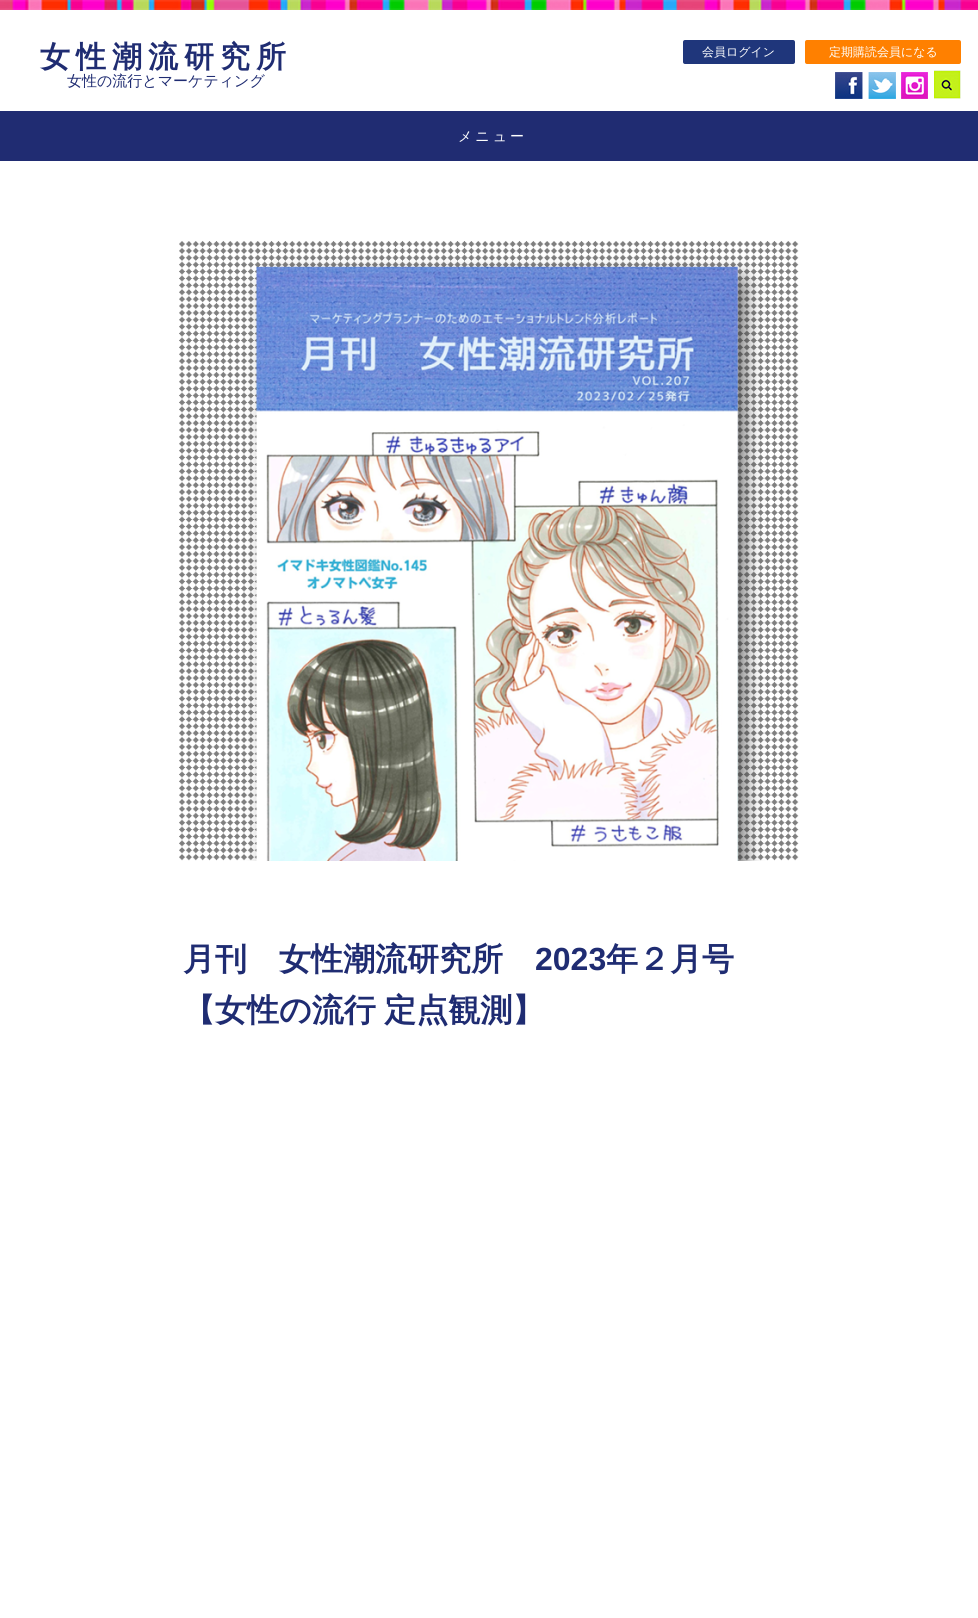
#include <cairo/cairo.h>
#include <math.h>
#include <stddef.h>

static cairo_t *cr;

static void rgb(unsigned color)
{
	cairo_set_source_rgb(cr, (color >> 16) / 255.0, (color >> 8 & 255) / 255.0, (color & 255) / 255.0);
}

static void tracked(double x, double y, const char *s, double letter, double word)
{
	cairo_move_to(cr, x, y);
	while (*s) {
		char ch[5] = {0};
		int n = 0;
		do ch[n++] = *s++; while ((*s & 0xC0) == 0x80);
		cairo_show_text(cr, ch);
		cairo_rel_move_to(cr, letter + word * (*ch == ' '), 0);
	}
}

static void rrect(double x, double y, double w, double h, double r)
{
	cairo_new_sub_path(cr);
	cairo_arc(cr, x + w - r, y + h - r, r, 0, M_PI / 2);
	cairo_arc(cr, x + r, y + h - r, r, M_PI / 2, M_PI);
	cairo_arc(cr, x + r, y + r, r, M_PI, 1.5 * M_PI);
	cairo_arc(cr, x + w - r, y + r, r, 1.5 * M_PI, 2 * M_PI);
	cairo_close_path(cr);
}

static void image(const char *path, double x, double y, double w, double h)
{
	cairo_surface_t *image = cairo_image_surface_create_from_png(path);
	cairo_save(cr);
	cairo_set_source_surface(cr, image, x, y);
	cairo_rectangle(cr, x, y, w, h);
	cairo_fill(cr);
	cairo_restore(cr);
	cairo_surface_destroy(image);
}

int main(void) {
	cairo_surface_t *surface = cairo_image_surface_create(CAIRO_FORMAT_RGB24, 978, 1618);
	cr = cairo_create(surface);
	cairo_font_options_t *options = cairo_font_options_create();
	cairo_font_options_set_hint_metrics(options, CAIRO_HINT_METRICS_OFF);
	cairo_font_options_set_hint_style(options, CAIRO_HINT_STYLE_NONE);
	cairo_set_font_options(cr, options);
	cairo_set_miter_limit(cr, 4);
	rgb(0xffffff);
	cairo_paint(cr);
	image("img/1.png", 0, 0, 978, 10);
	rgb(0x1f367b);
	rrect(683, 40, 112, 24, 2);
	cairo_fill(cr);
	rgb(0xff8000);
	rrect(805, 40, 156, 24, 2);
	cairo_fill(cr);
	image("img/2.png", 835, 72, 28, 27);
	image("img/3.png", 868, 72, 28, 27);
	image("img/4.png", 901, 72, 27, 27);
	image("img/5.png", 934, 70, 27, 29);
	rgb(0x202c72);
	cairo_rectangle(cr, 0, 111, 978, 50);
	cairo_fill(cr);
	image("img/6.png", 179, 241, 620, 620);
	cairo_select_font_face(cr, "WenQuanYi Zen Hei", CAIRO_FONT_SLANT_NORMAL, CAIRO_FONT_WEIGHT_BOLD);
	cairo_set_font_size(cr, 30);
	rgb(0x1f2c72);
	tracked(40, 67, "女性潮流研究所", 6, 0);
	cairo_select_font_face(cr, "WenQuanYi Zen Hei Medium", CAIRO_FONT_SLANT_NORMAL, CAIRO_FONT_WEIGHT_NORMAL);
	cairo_set_font_size(cr, 15);
	cairo_move_to(cr, 67, 86);
	cairo_show_text(cr, "女性の流行とマーケティング");
	cairo_set_font_size(cr, 12);
	rgb(0xffffff);
	cairo_move_to(cr, 702, 56);
	cairo_show_text(cr, "会員ログイン");
	cairo_move_to(cr, 829, 56);
	cairo_show_text(cr, "定期購読会員になる");
	cairo_set_font_size(cr, 14);
	tracked(458, 141, "メニュー", 3, 0);
	cairo_select_font_face(cr, "WenQuanYi Zen Hei", CAIRO_FONT_SLANT_NORMAL, CAIRO_FONT_WEIGHT_BOLD);
	cairo_set_font_size(cr, 32);
	rgb(0x1f2c72);
	cairo_move_to(cr, 183, 970);
	cairo_show_text(cr, "月刊　女性潮流研究所");
	cairo_select_font_face(cr, "Liberation Sans", CAIRO_FONT_SLANT_NORMAL, CAIRO_FONT_WEIGHT_BOLD);
	cairo_move_to(cr, 535, 970);
	cairo_show_text(cr, "2023");
	cairo_select_font_face(cr, "WenQuanYi Zen Hei", CAIRO_FONT_SLANT_NORMAL, CAIRO_FONT_WEIGHT_BOLD);
	cairo_move_to(cr, 606, 970);
	cairo_show_text(cr, "年２月号");
	tracked(183, 1021, "【女性の流行 定点観測】", 0, -1);
	cairo_surface_write_to_png(surface, "page.png");
	cairo_font_options_destroy(options);
	cairo_destroy(cr);
	cairo_surface_destroy(surface);
	return 0;
}
